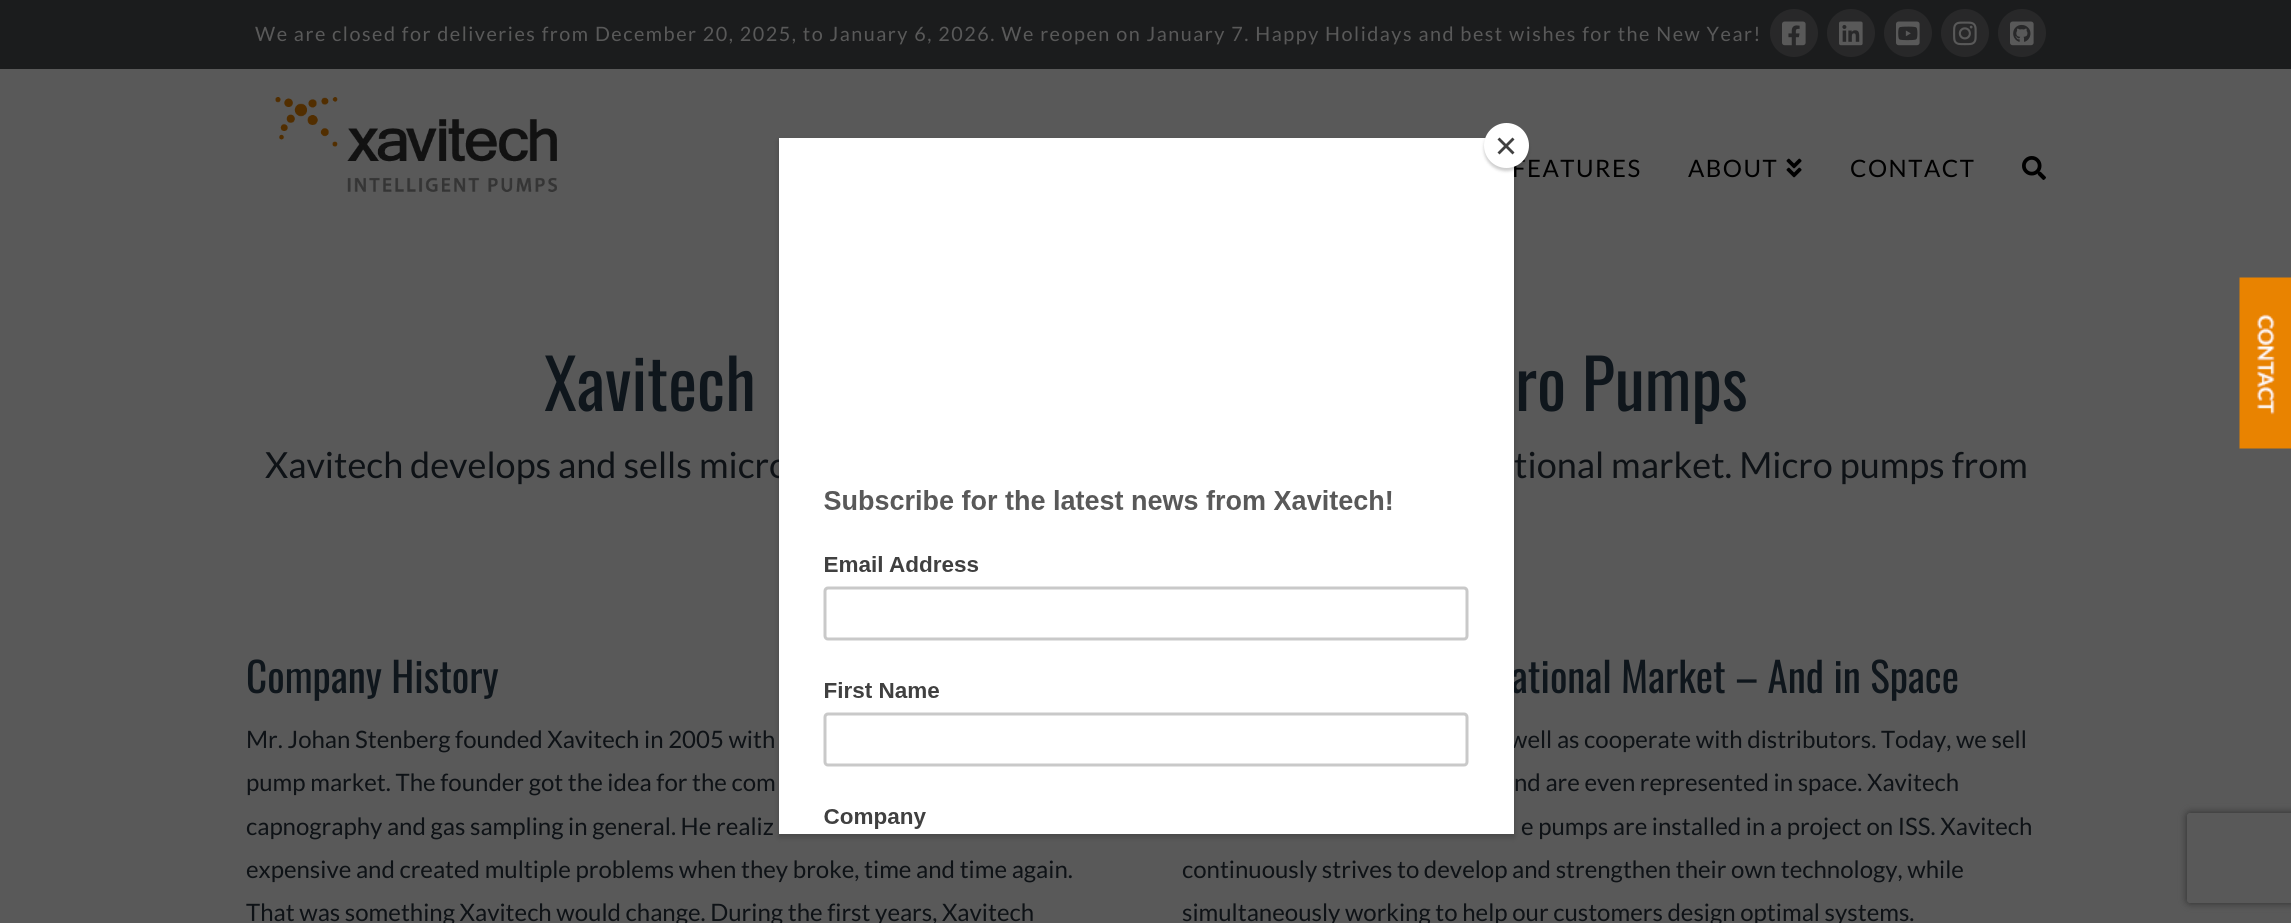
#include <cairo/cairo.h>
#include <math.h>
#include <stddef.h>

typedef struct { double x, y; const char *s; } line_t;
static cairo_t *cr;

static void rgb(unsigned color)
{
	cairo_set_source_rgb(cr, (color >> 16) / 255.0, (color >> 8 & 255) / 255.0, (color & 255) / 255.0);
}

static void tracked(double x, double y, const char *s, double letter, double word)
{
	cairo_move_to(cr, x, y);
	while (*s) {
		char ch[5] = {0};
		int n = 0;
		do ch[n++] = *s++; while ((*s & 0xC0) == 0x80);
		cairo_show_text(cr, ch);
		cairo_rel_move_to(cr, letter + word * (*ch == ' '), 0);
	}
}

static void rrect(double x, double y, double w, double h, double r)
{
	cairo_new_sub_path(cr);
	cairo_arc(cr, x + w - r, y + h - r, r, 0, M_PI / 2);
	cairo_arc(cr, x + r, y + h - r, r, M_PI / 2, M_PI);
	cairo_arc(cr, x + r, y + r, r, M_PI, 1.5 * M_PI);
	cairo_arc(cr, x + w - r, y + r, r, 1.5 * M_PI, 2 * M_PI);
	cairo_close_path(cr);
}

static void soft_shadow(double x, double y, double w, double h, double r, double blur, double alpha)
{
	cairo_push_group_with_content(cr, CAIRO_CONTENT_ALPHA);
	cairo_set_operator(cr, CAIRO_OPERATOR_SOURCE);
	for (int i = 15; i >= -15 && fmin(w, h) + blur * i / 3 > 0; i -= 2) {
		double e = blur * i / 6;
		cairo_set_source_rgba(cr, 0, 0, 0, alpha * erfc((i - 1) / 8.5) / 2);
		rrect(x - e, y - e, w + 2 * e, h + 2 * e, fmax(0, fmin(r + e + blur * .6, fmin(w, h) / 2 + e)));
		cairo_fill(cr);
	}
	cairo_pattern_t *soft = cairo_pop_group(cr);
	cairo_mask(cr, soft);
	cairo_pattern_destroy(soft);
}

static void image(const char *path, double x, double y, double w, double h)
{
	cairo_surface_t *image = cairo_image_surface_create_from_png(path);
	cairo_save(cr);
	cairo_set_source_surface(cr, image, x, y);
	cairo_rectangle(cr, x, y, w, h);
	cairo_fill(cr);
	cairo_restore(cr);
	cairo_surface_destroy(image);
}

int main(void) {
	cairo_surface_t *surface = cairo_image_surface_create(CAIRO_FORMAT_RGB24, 2291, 923);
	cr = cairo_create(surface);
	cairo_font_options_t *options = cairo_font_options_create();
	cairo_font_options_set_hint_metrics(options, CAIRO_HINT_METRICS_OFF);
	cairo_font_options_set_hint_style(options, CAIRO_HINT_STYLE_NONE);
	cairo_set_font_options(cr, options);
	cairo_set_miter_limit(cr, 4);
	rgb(0x595959);
	cairo_paint(cr);
	rgb(0x1b1c1d);
	cairo_rectangle(cr, 0, 0, 2291, 69);
	cairo_fill(cr);
	rgb(0x282829);
	cairo_arc(cr, 1794, 33, 24, 0, 2 * M_PI);
	cairo_fill(cr);
	image("img/1.png", 1782, 21, 24, 25);
	cairo_arc(cr, 1851, 33, 24, 0, 2 * M_PI);
	cairo_fill(cr);
	image("img/2.png", 1839, 21, 24, 25);
	cairo_arc(cr, 1908, 33, 24, 0, 2 * M_PI);
	cairo_fill(cr);
	image("img/3.png", 1896, 21, 24, 25);
	cairo_arc(cr, 1965, 33, 24, 0, 2 * M_PI);
	cairo_fill(cr);
	image("img/4.png", 1953, 21, 24, 25);
	cairo_arc(cr, 2022, 33, 24, 0, 2 * M_PI);
	cairo_fill(cr);
	image("img/5.png", 2010, 21, 24, 25);
	image("img/6.png", 275, 97, 282, 95);
	image("img/7.png", 1786, 158, 16, 20);
	image("img/8.png", 2022, 156, 24, 24);
	image("img/9.png", 2239, 277, 52, 172);
	rgb(0x000000);
	soft_shadow(779, 141, 735, 696, 0, 3, 0.2);
	cairo_save(cr);
	cairo_set_fill_rule(cr, CAIRO_FILL_RULE_EVEN_ODD);
	cairo_new_path(cr);
	cairo_move_to(cr, 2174, 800);
	cairo_line_to(cr, 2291, 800);
	cairo_line_to(cr, 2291, 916);
	cairo_line_to(cr, 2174, 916);
	cairo_close_path(cr);
	cairo_move_to(cr, 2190, 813);
	cairo_line_to(cr, 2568, 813);
	cairo_curve_to(cr, 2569.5, 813, 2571, 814.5, 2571, 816);
	cairo_line_to(cr, 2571, 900);
	cairo_curve_to(cr, 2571, 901.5, 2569.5, 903, 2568, 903);
	cairo_line_to(cr, 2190, 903);
	cairo_curve_to(cr, 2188.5, 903, 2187, 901.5, 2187, 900);
	cairo_line_to(cr, 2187, 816);
	cairo_curve_to(cr, 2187, 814.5, 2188.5, 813, 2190, 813);
	cairo_close_path(cr);
	cairo_clip(cr);
	rgb(0x2d2d2d);
	soft_shadow(2187, 813, 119, 90, 3, 4, 1);
	cairo_restore(cr);
	cairo_select_font_face(cr, "Lato", CAIRO_FONT_SLANT_NORMAL, CAIRO_FONT_WEIGHT_NORMAL);
	cairo_set_font_size(cr, 19.8);
	rgb(0x595959);
	tracked(255, 41, "We are closed for deliveries from December 20, 2025, to January 6, 2026. We reopen on January 7. Happy Holidays and best wishes for the New Year!", 1.5, 0);
	cairo_set_font_size(cr, 24);
	rgb(0x000000);
	{
		static const line_t items[] = {
			{1512, 177, "FEATURES"},
			{1688, 177, "ABOUT"},
			{1850, 177, "CONTACT"},
		};
		for (size_t i = 0; i < sizeof items / sizeof *items; i++) {
			tracked(items[i].x, items[i].y, items[i].s, 1.5, 0);
		}
	}
	cairo_select_font_face(cr, "Oswald", CAIRO_FONT_SLANT_NORMAL, CAIRO_FONT_WEIGHT_NORMAL);
	cairo_set_font_size(cr, 68.5);
	rgb(0x0f161c);
	cairo_move_to(cr, 544, 411);
	cairo_show_text(cr, "Xavitech");
	cairo_move_to(cr, 1515, 411);
	cairo_show_text(cr, "ro Pumps");
	cairo_select_font_face(cr, "Lato", CAIRO_FONT_SLANT_NORMAL, CAIRO_FONT_WEIGHT_NORMAL);
	cairo_set_font_size(cr, 36);
	rgb(0x0e1216);
	cairo_move_to(cr, 265, 478);
	cairo_show_text(cr, "Xavitech develops and sells micro");
	cairo_move_to(cr, 1514, 478);
	cairo_show_text(cr, "tional market. Micro pumps from");
	cairo_select_font_face(cr, "Oswald", CAIRO_FONT_SLANT_NORMAL, CAIRO_FONT_WEIGHT_NORMAL);
	cairo_set_font_size(cr, 41.1);
	rgb(0x0f161c);
	cairo_move_to(cr, 246, 693);
	cairo_show_text(cr, "Company History");
	cairo_select_font_face(cr, "Lato", CAIRO_FONT_SLANT_NORMAL, CAIRO_FONT_WEIGHT_NORMAL);
	cairo_set_font_size(cr, 24);
	rgb(0x0e1216);
	{
		static const line_t items[] = {
			{246, 748, "Mr. Johan Stenberg founded Xavitech in 2005 with"},
			{246, 791, "pump market. The founder got the idea for the com"},
			{246, 835, "capnography and gas sampling in general. He realiz"},
			{246, 878, "expensive and created multiple problems when they broke, time and time again."},
			{246, 921, "That was something Xavitech would change. During the first years, Xavitech"},
		};
		for (size_t i = 0; i < sizeof items / sizeof *items; i++) {
			cairo_move_to(cr, items[i].x, items[i].y);
			cairo_show_text(cr, items[i].s);
		}
	}
	cairo_select_font_face(cr, "Oswald", CAIRO_FONT_SLANT_NORMAL, CAIRO_FONT_WEIGHT_NORMAL);
	cairo_set_font_size(cr, 41.1);
	rgb(0x0f161c);
	cairo_move_to(cr, 1511, 693);
	cairo_show_text(cr, "ational Market – And in Space");
	cairo_select_font_face(cr, "Lato", CAIRO_FONT_SLANT_NORMAL, CAIRO_FONT_WEIGHT_NORMAL);
	cairo_set_font_size(cr, 24);
	rgb(0x0e1216);
	{
		static const line_t items[] = {
			{1509, 748, "well as cooperate with distributors. Today, we sell"},
			{1514, 791, "nd are even represented in space. Xavitech"},
			{1521, 835, "e pumps are installed in a project on ISS. Xavitech"},
			{1182, 878, "continuously strives to develop and strengthen their own technology, while"},
			{1182, 921, "simultaneously working to help our customers design optimal systems."},
		};
		for (size_t i = 0; i < sizeof items / sizeof *items; i++) {
			cairo_move_to(cr, items[i].x, items[i].y);
			cairo_show_text(cr, items[i].s);
		}
	}
	image("img/10.png", 779, 138, 735, 696);
	rgb(0x000000);
	soft_shadow(1484, 126, 45, 45, 22.5, 1.5, 0.2);
	rgb(0xffffff);
	cairo_arc(cr, 1506.5, 145.5, 22.5, 0, 2 * M_PI);
	cairo_fill(cr);
	rgb(0x414141);
	cairo_new_path(cr);
	cairo_move_to(cr, 1512.5, 137.5);
	cairo_line_to(cr, 1514.5, 139.5);
	cairo_line_to(cr, 1499.5, 154.5);
	cairo_line_to(cr, 1497.5, 152.5);
	cairo_close_path(cr);
	cairo_fill(cr);
	cairo_new_path(cr);
	cairo_move_to(cr, 1497.5, 139.5);
	cairo_line_to(cr, 1499.5, 137.5);
	cairo_line_to(cr, 1514.5, 152.5);
	cairo_line_to(cr, 1512.5, 154.5);
	cairo_close_path(cr);
	cairo_fill(cr);
	cairo_surface_write_to_png(surface, "page.png");
	cairo_font_options_destroy(options);
	cairo_destroy(cr);
	cairo_surface_destroy(surface);
	return 0;
}
